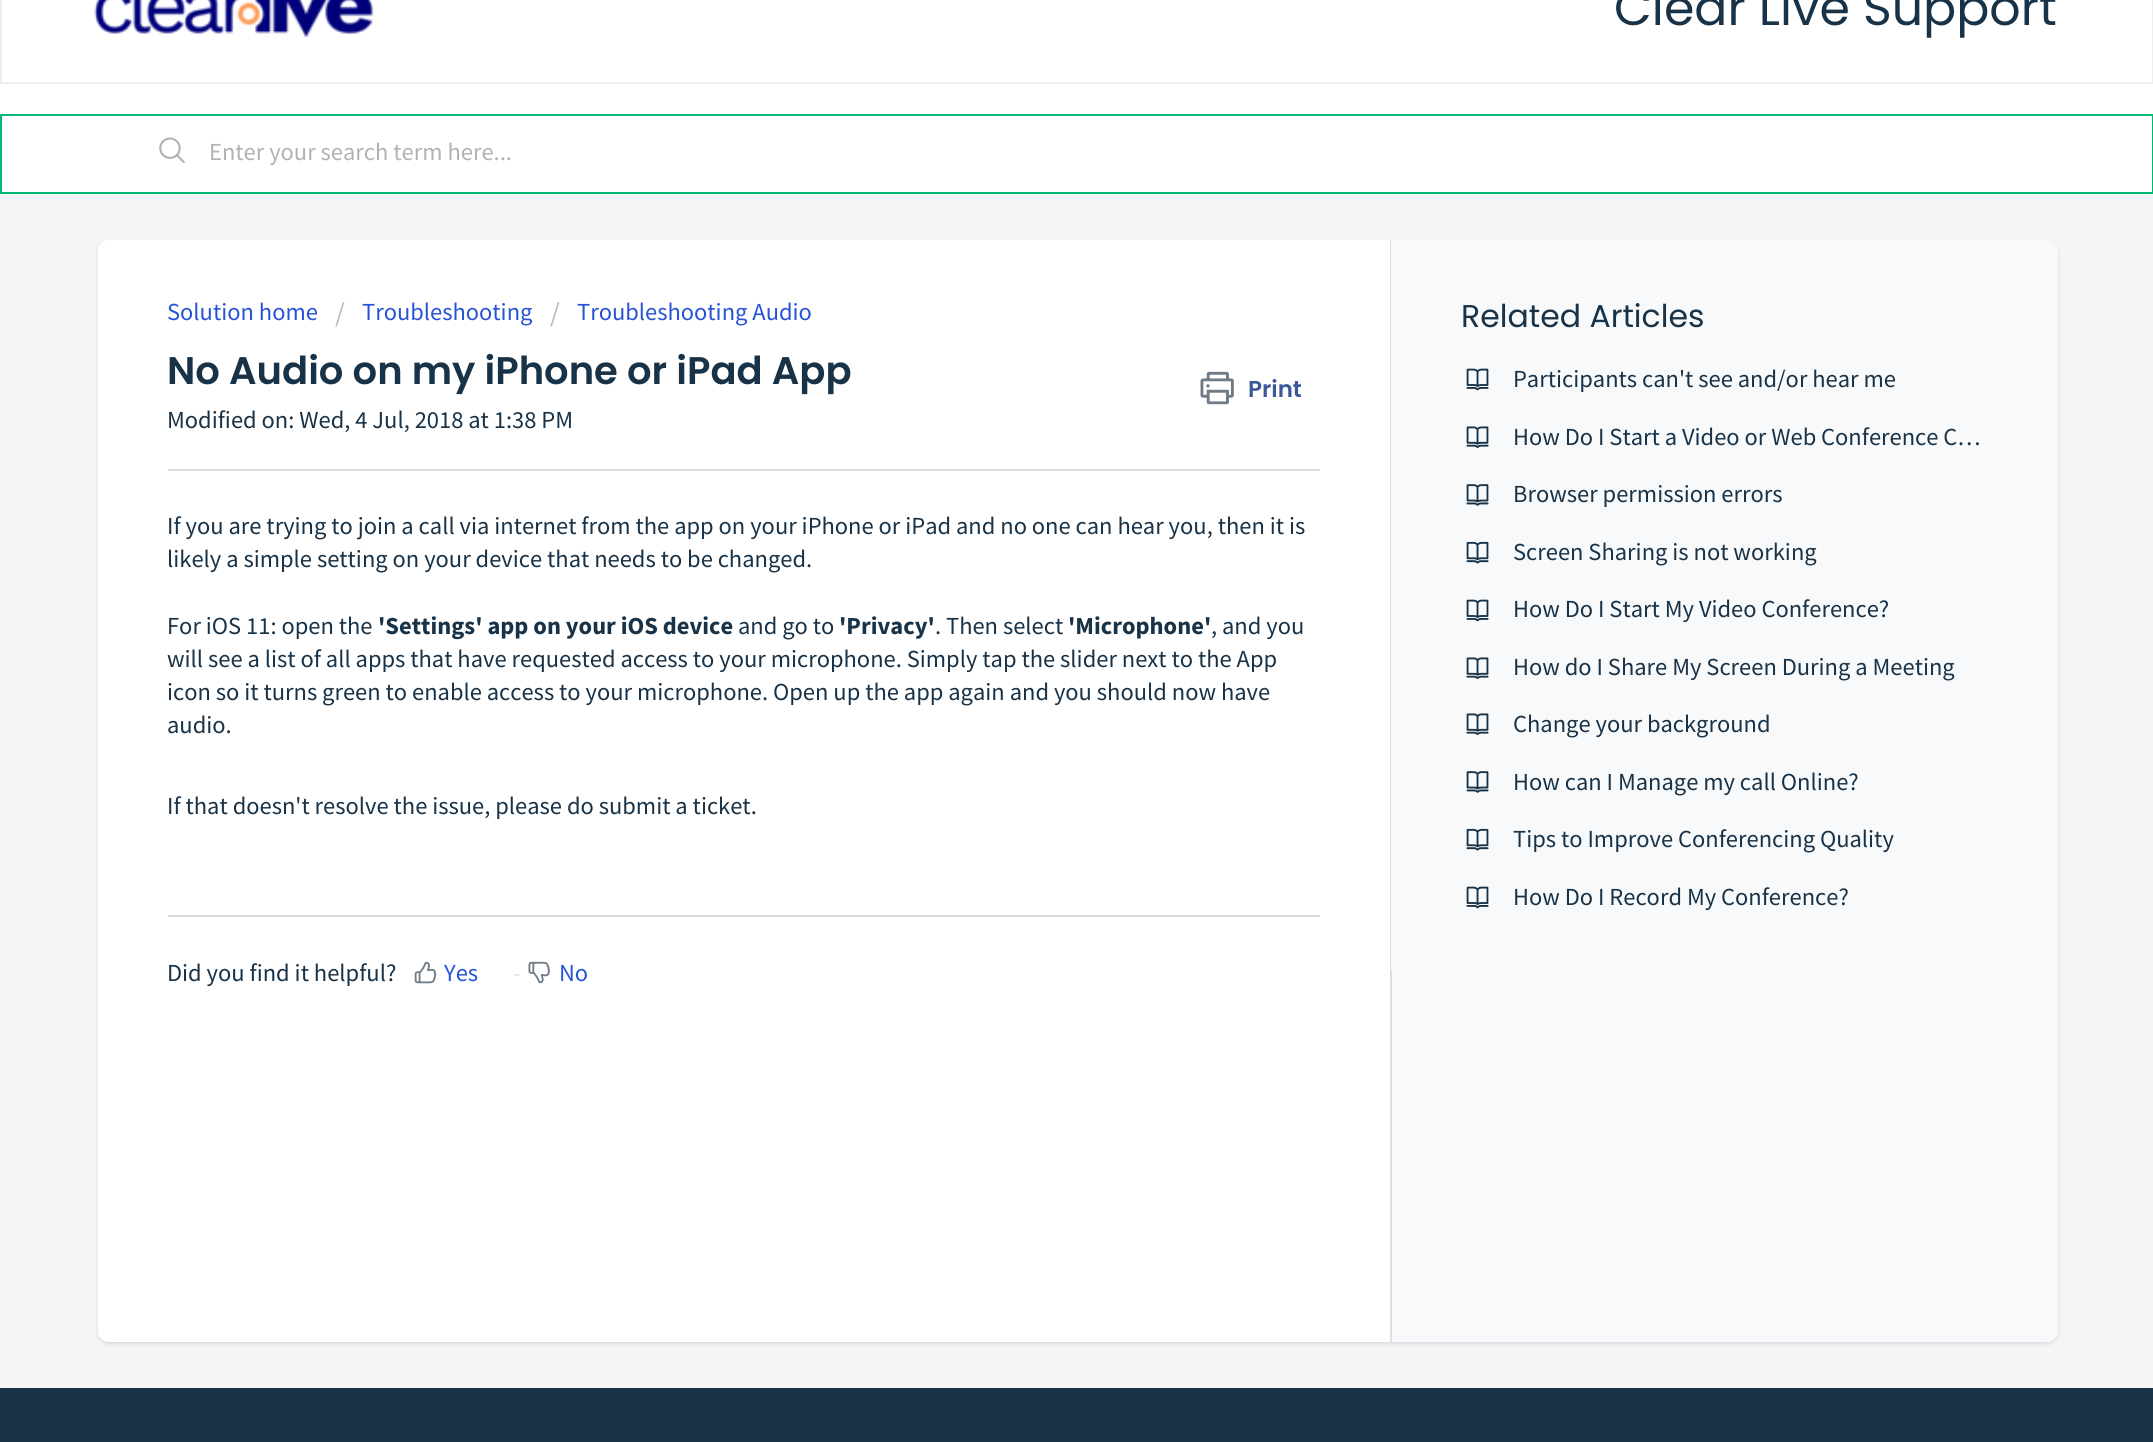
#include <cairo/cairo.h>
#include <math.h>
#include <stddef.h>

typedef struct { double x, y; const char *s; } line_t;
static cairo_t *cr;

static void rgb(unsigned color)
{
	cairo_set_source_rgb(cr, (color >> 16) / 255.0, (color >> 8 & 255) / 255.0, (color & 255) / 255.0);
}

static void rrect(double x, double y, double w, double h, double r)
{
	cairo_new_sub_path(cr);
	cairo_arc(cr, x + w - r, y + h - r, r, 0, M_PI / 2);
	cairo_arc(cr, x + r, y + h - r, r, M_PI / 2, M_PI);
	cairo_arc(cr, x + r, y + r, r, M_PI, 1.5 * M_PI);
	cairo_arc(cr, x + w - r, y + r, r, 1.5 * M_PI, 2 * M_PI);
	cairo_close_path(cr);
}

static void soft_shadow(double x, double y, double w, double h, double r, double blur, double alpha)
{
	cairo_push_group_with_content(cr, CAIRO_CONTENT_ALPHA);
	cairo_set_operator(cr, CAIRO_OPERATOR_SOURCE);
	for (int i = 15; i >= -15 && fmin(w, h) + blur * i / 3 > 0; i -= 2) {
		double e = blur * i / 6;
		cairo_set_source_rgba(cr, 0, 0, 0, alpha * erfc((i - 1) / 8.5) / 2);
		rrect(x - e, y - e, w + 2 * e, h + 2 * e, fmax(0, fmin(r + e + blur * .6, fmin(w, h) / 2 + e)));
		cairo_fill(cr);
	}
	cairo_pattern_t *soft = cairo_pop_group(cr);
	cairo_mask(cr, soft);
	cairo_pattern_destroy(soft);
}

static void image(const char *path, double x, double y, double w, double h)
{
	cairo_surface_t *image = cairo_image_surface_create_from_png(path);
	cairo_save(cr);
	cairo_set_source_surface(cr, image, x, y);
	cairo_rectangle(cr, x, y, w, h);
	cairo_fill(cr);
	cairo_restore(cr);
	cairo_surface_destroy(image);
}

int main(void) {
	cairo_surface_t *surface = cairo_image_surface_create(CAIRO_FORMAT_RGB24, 2153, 1442);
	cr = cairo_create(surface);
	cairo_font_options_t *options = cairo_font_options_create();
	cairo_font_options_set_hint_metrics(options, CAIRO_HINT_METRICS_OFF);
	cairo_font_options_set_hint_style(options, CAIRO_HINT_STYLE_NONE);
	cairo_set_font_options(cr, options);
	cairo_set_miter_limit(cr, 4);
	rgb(0xf3f5f7);
	cairo_paint(cr);
	rgb(0xffffff);
	cairo_rectangle(cr, 1, -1, 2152, 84);
	cairo_fill_preserve(cr);
	rgb(0xebeef0);
	cairo_stroke(cr);
	image("img/1.png", 94, 0, 280, 38);
	rgb(0xffffff);
	cairo_rectangle(cr, 0, 84, 2153, 30);
	cairo_fill(cr);
	cairo_rectangle(cr, 1, 115, 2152, 78);
	cairo_fill_preserve(cr);
	rgb(0x02b875);
	cairo_stroke(cr);
	image("img/2.png", 159, 137, 26, 26);
	rgb(0x3f3f44);
	soft_shadow(98, 242, 1960, 1102, 11, 2, 0.15);
	rgb(0xf8f9fa);
	rrect(98, 240, 1960, 1102, 11);
	cairo_fill(cr);
	rgb(0xffffff);
	cairo_new_path(cr);
	cairo_move_to(cr, 109, 240);
	cairo_line_to(cr, 1391, 240);
	cairo_line_to(cr, 1391, 1342);
	cairo_line_to(cr, 109, 1342);
	cairo_curve_to(cr, 103, 1342, 98, 1337, 98, 1331);
	cairo_line_to(cr, 98, 251);
	cairo_curve_to(cr, 98, 245, 103, 240, 109, 240);
	cairo_close_path(cr);
	cairo_fill(cr);
	rgb(0xdadfe3);
	cairo_rectangle(cr, 1390, 240, 2, 1102);
	cairo_fill(cr);
	image("img/3.png", 1200, 371, 34, 34);
	rgb(0xdcdcdc);
	cairo_rectangle(cr, 168, 469, 1152, 2);
	cairo_fill(cr);
	cairo_rectangle(cr, 168, 915, 1152, 2);
	cairo_fill(cr);
	image("img/4.png", 414, 961, 23, 23);
	image("img/5.png", 528, 961, 22, 23);
	rgb(0xf8f9fa);
	cairo_new_path(cr);
	cairo_move_to(cr, 1391, 240);
	cairo_line_to(cr, 2045, 240);
	cairo_curve_to(cr, 2051, 240, 2056, 245, 2056, 251);
	cairo_line_to(cr, 2056, 959);
	cairo_curve_to(cr, 2056, 965, 2051, 970, 2045, 970);
	cairo_line_to(cr, 1391, 970);
	cairo_close_path(cr);
	cairo_fill(cr);
	image("img/6.png", 1466, 368, 23, 23);
	image("img/7.png", 1466, 426, 23, 23);
	image("img/8.png", 1466, 484, 23, 22);
	image("img/9.png", 1466, 541, 23, 23);
	image("img/6.png", 1466, 599, 23, 23);
	image("img/7.png", 1466, 657, 23, 23);
	image("img/7.png", 1466, 713, 23, 23);
	image("img/8.png", 1466, 771, 23, 22);
	image("img/9.png", 1466, 828, 23, 23);
	image("img/6.png", 1466, 886, 23, 23);
	rgb(0x183247);
	cairo_rectangle(cr, 0, 1388, 2153, 54);
	cairo_fill(cr);
	cairo_select_font_face(cr, "Poppins", CAIRO_FONT_SLANT_NORMAL, CAIRO_FONT_WEIGHT_NORMAL);
	cairo_set_font_size(cr, 49);
	cairo_move_to(cr, 1614, 25);
	cairo_show_text(cr, "Clear Live Support");
	cairo_select_font_face(cr, "Source Sans Pro", CAIRO_FONT_SLANT_NORMAL, CAIRO_FONT_WEIGHT_NORMAL);
	cairo_set_font_size(cr, 24.5);
	rgb(0xb2b2b2);
	cairo_move_to(cr, 209, 160);
	cairo_show_text(cr, "Enter your search term here...");
	rgb(0x2753d7);
	cairo_move_to(cr, 167, 320);
	cairo_show_text(cr, "Solution home");
	cairo_set_font_size(cr, 28);
	rgb(0xbbbbbb);
	cairo_move_to(cr, 335, 322);
	cairo_show_text(cr, "/");
	cairo_set_font_size(cr, 24.5);
	rgb(0x2753d7);
	cairo_move_to(cr, 362, 320);
	cairo_show_text(cr, "Troubleshooting");
	cairo_set_font_size(cr, 28);
	rgb(0xbbbbbb);
	cairo_move_to(cr, 550, 322);
	cairo_show_text(cr, "/");
	cairo_set_font_size(cr, 24.5);
	rgb(0x2753d7);
	cairo_move_to(cr, 577, 320);
	cairo_show_text(cr, "Troubleshooting Audio");
	cairo_select_font_face(cr, "Poppins SemiBold", CAIRO_FONT_SLANT_NORMAL, CAIRO_FONT_WEIGHT_NORMAL);
	cairo_set_font_size(cr, 38.5);
	rgb(0x183247);
	cairo_move_to(cr, 167, 384);
	cairo_show_text(cr, "No Audio on my iPhone or iPad App");
	cairo_set_font_size(cr, 23);
	rgb(0x3b5998);
	cairo_move_to(cr, 1248, 397);
	cairo_show_text(cr, "Print");
	cairo_select_font_face(cr, "Source Sans Pro", CAIRO_FONT_SLANT_NORMAL, CAIRO_FONT_WEIGHT_NORMAL);
	cairo_set_font_size(cr, 24.5);
	rgb(0x183247);
	{
		static const line_t items[] = {
			{167, 428, "Modified on: Wed, 4 Jul, 2018 at 1:38 PM"},
			{167, 534, "If you are trying to join a call via internet from the app on your iPhone or iPad and no one can hear you, then it is"},
			{167, 567, "likely a simple setting on your device that needs to be changed."},
			{167, 634, "For iOS 11: open the"},
		};
		for (size_t i = 0; i < sizeof items / sizeof *items; i++) {
			cairo_move_to(cr, items[i].x, items[i].y);
			cairo_show_text(cr, items[i].s);
		}
	}
	cairo_select_font_face(cr, "Source Sans Pro", CAIRO_FONT_SLANT_NORMAL, CAIRO_FONT_WEIGHT_BOLD);
	cairo_move_to(cr, 378, 634);
	cairo_show_text(cr, "'Settings' app on your iOS device");
	cairo_select_font_face(cr, "Source Sans Pro", CAIRO_FONT_SLANT_NORMAL, CAIRO_FONT_WEIGHT_NORMAL);
	cairo_move_to(cr, 738, 634);
	cairo_show_text(cr, "and go to");
	cairo_select_font_face(cr, "Source Sans Pro", CAIRO_FONT_SLANT_NORMAL, CAIRO_FONT_WEIGHT_BOLD);
	cairo_move_to(cr, 839, 634);
	cairo_show_text(cr, "'Privacy'");
	cairo_select_font_face(cr, "Source Sans Pro", CAIRO_FONT_SLANT_NORMAL, CAIRO_FONT_WEIGHT_NORMAL);
	cairo_move_to(cr, 935, 634);
	cairo_show_text(cr, ". Then select");
	cairo_select_font_face(cr, "Source Sans Pro", CAIRO_FONT_SLANT_NORMAL, CAIRO_FONT_WEIGHT_BOLD);
	cairo_move_to(cr, 1068, 634);
	cairo_show_text(cr, "'Microphone'");
	cairo_select_font_face(cr, "Source Sans Pro", CAIRO_FONT_SLANT_NORMAL, CAIRO_FONT_WEIGHT_NORMAL);
	{
		static const line_t items[] = {
			{1211, 634, ", and you"},
			{167, 667, "will see a list of all apps that have requested access to your microphone. Simply tap the slider next to the App"},
			{167, 700, "icon so it turns green to enable access to your microphone. Open up the app again and you should now have"},
			{167, 733, "audio."},
			{167, 814, "If that doesn't resolve the issue, please do submit a ticket."},
			{167, 981, "Did you find it helpful?"},
		};
		for (size_t i = 0; i < sizeof items / sizeof *items; i++) {
			cairo_move_to(cr, items[i].x, items[i].y);
			cairo_show_text(cr, items[i].s);
		}
	}
	rgb(0x2753d7);
	cairo_move_to(cr, 444, 981);
	cairo_show_text(cr, "Yes");
	rgb(0xe5e5e5);
	cairo_move_to(cr, 513, 981);
	cairo_show_text(cr, "-");
	rgb(0x2753d7);
	cairo_move_to(cr, 559, 981);
	cairo_show_text(cr, "No");
	cairo_select_font_face(cr, "Poppins", CAIRO_FONT_SLANT_NORMAL, CAIRO_FONT_WEIGHT_NORMAL);
	cairo_set_font_size(cr, 31.5);
	rgb(0x183247);
	cairo_move_to(cr, 1461, 327);
	cairo_show_text(cr, "Related Articles");
	cairo_select_font_face(cr, "Source Sans Pro", CAIRO_FONT_SLANT_NORMAL, CAIRO_FONT_WEIGHT_NORMAL);
	cairo_set_font_size(cr, 24.5);
	{
		static const line_t items[] = {
			{1513, 387, "Participants can't see and/or hear me"},
			{1513, 445, "How Do I Start a Video or Web Conference C…"},
			{1513, 502, "Browser permission errors"},
			{1513, 560, "Screen Sharing is not working"},
			{1513, 617, "How Do I Start My Video Conference?"},
			{1513, 675, "How do I Share My Screen During a Meeting"},
			{1513, 732, "Change your background"},
			{1513, 790, "How can I Manage my call Online?"},
			{1513, 847, "Tips to Improve Conferencing Quality"},
			{1513, 905, "How Do I Record My Conference?"},
		};
		for (size_t i = 0; i < sizeof items / sizeof *items; i++) {
			cairo_move_to(cr, items[i].x, items[i].y);
			cairo_show_text(cr, items[i].s);
		}
	}
	cairo_surface_write_to_png(surface, "page.png");
	cairo_font_options_destroy(options);
	cairo_destroy(cr);
	cairo_surface_destroy(surface);
	return 0;
}
